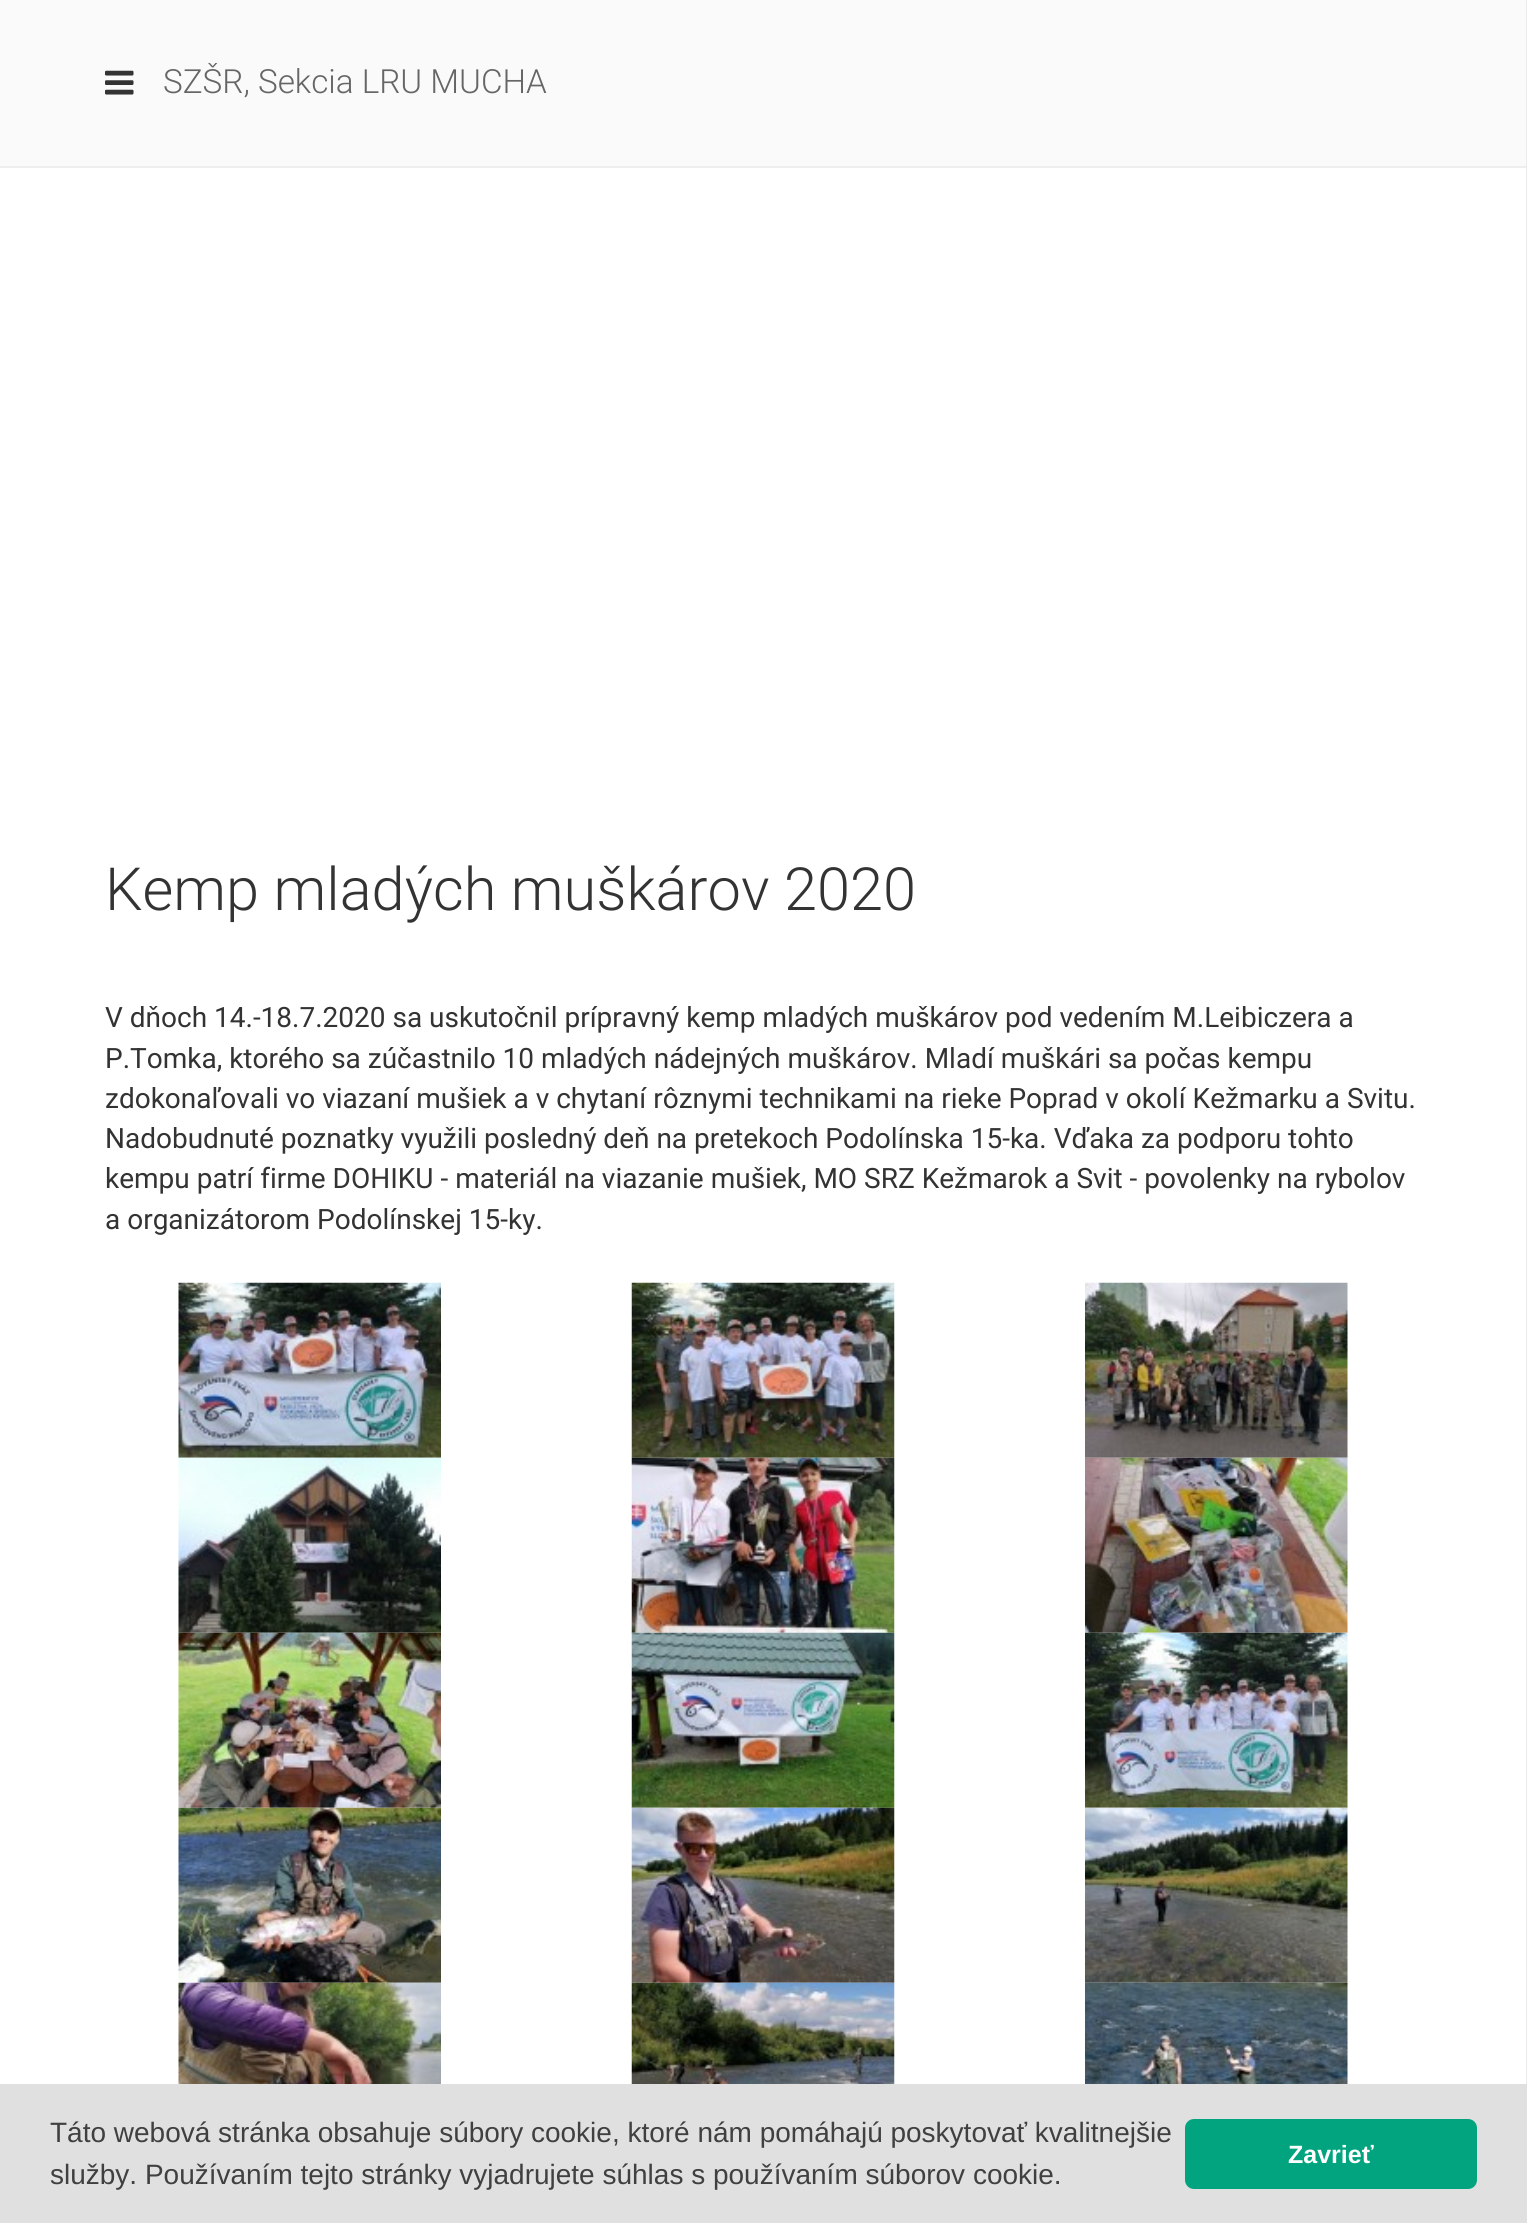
#include <cairo/cairo.h>
#include <math.h>
#include <stddef.h>

typedef struct { double x, y; const char *s; } line_t;
typedef struct { double x, y, w, h; unsigned color; } box_t;
static cairo_t *cr;

static void rgb(unsigned color)
{
	cairo_set_source_rgb(cr, (color >> 16) / 255.0, (color >> 8 & 255) / 255.0, (color & 255) / 255.0);
}

static void rrect(double x, double y, double w, double h, double r)
{
	cairo_new_sub_path(cr);
	cairo_arc(cr, x + w - r, y + h - r, r, 0, M_PI / 2);
	cairo_arc(cr, x + r, y + h - r, r, M_PI / 2, M_PI);
	cairo_arc(cr, x + r, y + r, r, M_PI, 1.5 * M_PI);
	cairo_arc(cr, x + w - r, y + r, r, 1.5 * M_PI, 2 * M_PI);
	cairo_close_path(cr);
}

static void image(const char *path, double x, double y, double w, double h)
{
	cairo_surface_t *image = cairo_image_surface_create_from_png(path);
	cairo_save(cr);
	cairo_set_source_surface(cr, image, x, y);
	cairo_rectangle(cr, x, y, w, h);
	cairo_fill(cr);
	cairo_restore(cr);
	cairo_surface_destroy(image);
}

int main(void) {
	cairo_surface_t *surface = cairo_image_surface_create(CAIRO_FORMAT_RGB24, 1527, 2223);
	cr = cairo_create(surface);
	cairo_font_options_t *options = cairo_font_options_create();
	cairo_font_options_set_hint_metrics(options, CAIRO_HINT_METRICS_OFF);
	cairo_font_options_set_hint_style(options, CAIRO_HINT_STYLE_NONE);
	cairo_set_font_options(cr, options);
	cairo_set_miter_limit(cr, 4);
	rgb(0xffffff);
	cairo_paint(cr);
	{
		static const box_t items[] = {
			{1526, 0, 1, 2084, 0xebebeb},
			{0, 0, 1526, 166, 0xfafafa},
			{0, 166, 1526, 2, 0xeeeeee},
		};
		for (size_t i = 0; i < sizeof items / sizeof *items; i++) {
			rgb(items[i].color);
			cairo_rectangle(cr, items[i].x, items[i].y, items[i].w, items[i].h);
			cairo_fill(cr);
		}
	}
	image("img/1.png", 105, 70, 29, 25);
	image("img/2.png", 178, 1282, 263, 176);
	image("img/3.png", 631, 1282, 264, 176);
	image("img/4.png", 1085, 1282, 263, 176);
	image("img/5.png", 178, 1457, 263, 176);
	image("img/6.png", 631, 1457, 264, 176);
	image("img/7.png", 1085, 1457, 263, 176);
	image("img/8.png", 178, 1632, 263, 176);
	image("img/9.png", 631, 1632, 264, 176);
	image("img/10.png", 1085, 1632, 263, 176);
	image("img/11.png", 178, 1807, 263, 176);
	image("img/12.png", 631, 1807, 264, 176);
	image("img/13.png", 1085, 1807, 263, 176);
	image("img/14.png", 178, 1982, 263, 102);
	image("img/15.png", 631, 1982, 264, 102);
	image("img/16.png", 1085, 1982, 263, 102);
	rgb(0xe0e0e0);
	cairo_rectangle(cr, 0, 2084, 1527, 139);
	cairo_fill(cr);
	rgb(0x01a47e);
	rrect(1185, 2119, 292, 70, 9);
	cairo_fill(cr);
	cairo_select_font_face(cr, "Roboto Light", CAIRO_FONT_SLANT_NORMAL, CAIRO_FONT_WEIGHT_NORMAL);
	cairo_set_font_size(cr, 33.25);
	rgb(0x666666);
	cairo_move_to(cr, 163, 93);
	cairo_show_text(cr, "SZŠR, Sekcia LRU MUCHA");
	cairo_set_font_size(cr, 59.5);
	rgb(0x333333);
	cairo_move_to(cr, 105, 910);
	cairo_show_text(cr, "Kemp mladých muškárov 2020");
	cairo_select_font_face(cr, "Roboto", CAIRO_FONT_SLANT_NORMAL, CAIRO_FONT_WEIGHT_NORMAL);
	cairo_set_font_size(cr, 28);
	{
		static const line_t items[] = {
			{105, 1027, "V dňoch 14.-18.7.2020 sa uskutočnil prípravný kemp mladých muškárov pod vedením M.Leibiczera a"},
			{105, 1068, "P.Tomka, ktorého sa zúčastnilo 10 mladých nádejných muškárov. Mladí muškári sa počas kempu"},
			{105, 1108, "zdokonaľovali vo viazaní mušiek a v chytaní rôznymi technikami na rieke Poprad v okolí Kežmarku a Svitu."},
			{105, 1148, "Nadobudnuté poznatky využili posledný deň na pretekoch Podolínska 15-ka. Vďaka za podporu tohto"},
			{105, 1188, "kempu patrí firme DOHIKU - materiál na viazanie mušiek, MO SRZ Kežmarok a Svit - povolenky na rybolov"},
			{105, 1229, "a organizátorom Podolínskej 15-ky."},
		};
		for (size_t i = 0; i < sizeof items / sizeof *items; i++) {
			cairo_move_to(cr, items[i].x, items[i].y);
			cairo_show_text(cr, items[i].s);
		}
	}
	cairo_select_font_face(cr, "Liberation Sans", CAIRO_FONT_SLANT_NORMAL, CAIRO_FONT_WEIGHT_NORMAL);
	rgb(0x404040);
	cairo_move_to(cr, 50, 2142);
	cairo_show_text(cr, "Táto webová stránka obsahuje súbory cookie, ktoré nám pomáhajú poskytovať kvalitnejšie");
	cairo_move_to(cr, 50, 2184);
	cairo_show_text(cr, "služby. Používaním tejto stránky vyjadrujete súhlas s používaním súborov cookie.");
	cairo_select_font_face(cr, "Liberation Sans", CAIRO_FONT_SLANT_NORMAL, CAIRO_FONT_WEIGHT_BOLD);
	cairo_set_font_size(cr, 25);
	rgb(0xffffff);
	cairo_move_to(cr, 1288, 2163);
	cairo_show_text(cr, "Zavrieť");
	cairo_surface_write_to_png(surface, "page.png");
	cairo_font_options_destroy(options);
	cairo_destroy(cr);
	cairo_surface_destroy(surface);
	return 0;
}
